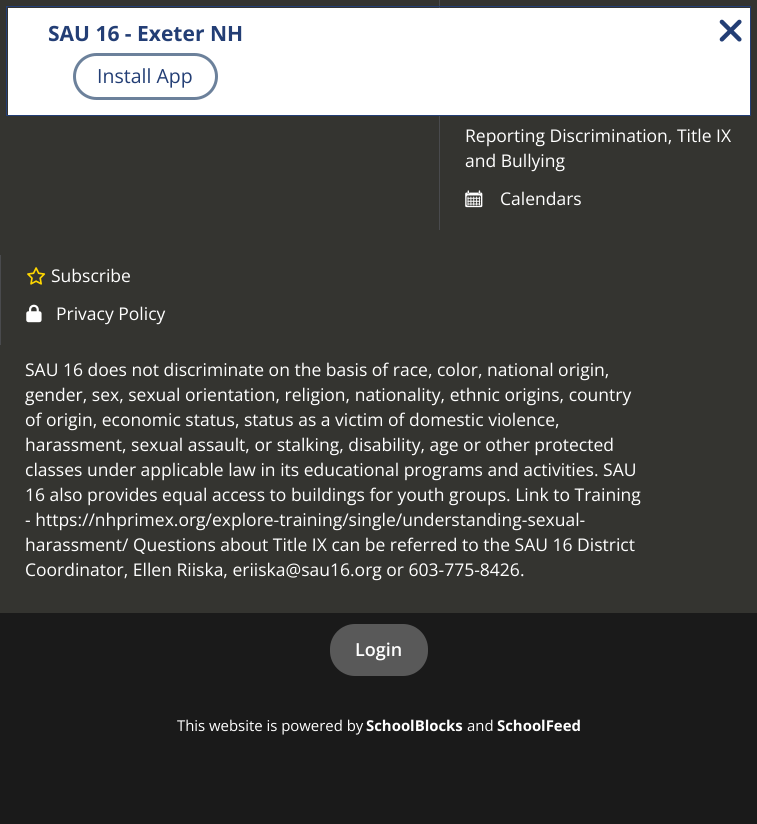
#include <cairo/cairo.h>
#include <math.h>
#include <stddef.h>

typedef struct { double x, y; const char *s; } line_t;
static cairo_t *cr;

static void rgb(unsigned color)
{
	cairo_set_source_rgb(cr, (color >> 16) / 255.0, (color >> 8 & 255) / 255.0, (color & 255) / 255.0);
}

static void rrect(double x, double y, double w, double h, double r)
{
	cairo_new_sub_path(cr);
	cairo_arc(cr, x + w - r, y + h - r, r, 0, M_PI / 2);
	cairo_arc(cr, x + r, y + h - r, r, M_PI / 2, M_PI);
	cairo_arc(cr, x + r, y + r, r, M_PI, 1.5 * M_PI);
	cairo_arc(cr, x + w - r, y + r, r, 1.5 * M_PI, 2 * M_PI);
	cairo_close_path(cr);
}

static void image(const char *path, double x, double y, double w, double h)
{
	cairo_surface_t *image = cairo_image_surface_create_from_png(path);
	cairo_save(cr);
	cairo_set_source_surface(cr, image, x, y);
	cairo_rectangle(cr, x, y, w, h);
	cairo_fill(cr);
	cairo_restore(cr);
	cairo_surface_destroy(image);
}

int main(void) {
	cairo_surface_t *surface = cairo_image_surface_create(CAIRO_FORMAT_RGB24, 757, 824);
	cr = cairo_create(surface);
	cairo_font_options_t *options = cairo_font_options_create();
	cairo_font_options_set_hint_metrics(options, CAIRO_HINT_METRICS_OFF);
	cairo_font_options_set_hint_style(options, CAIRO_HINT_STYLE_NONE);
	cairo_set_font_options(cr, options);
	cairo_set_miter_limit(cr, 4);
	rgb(0x343430);
	cairo_paint(cr);
	rgb(0x494a4d);
	cairo_rectangle(cr, 439, 0, 1, 230);
	cairo_fill(cr);
	rgb(0xffffff);
	cairo_rectangle(cr, 8, 8, 742, 107);
	cairo_fill(cr);
	rrect(74.5, 54.5, 142, 44, 22);
	rgb(0x6c819b);
	cairo_set_line_width(cr, 3);
	cairo_stroke(cr);
	cairo_rectangle(cr, 6.5, 6.5, 744, 109);
	rgb(0x233e75);
	cairo_set_line_width(cr, 1);
	cairo_stroke(cr);
	image("img/1.png", 719, 19, 23, 23);
	image("img/2.png", 465, 190, 18, 18);
	rgb(0x494a4d);
	cairo_rectangle(cr, 0, 255, 1, 90);
	cairo_fill(cr);
	image("img/3.png", 27, 267, 19, 18);
	image("img/4.png", 26, 304, 16, 19);
	rgb(0x1a1a1a);
	cairo_rectangle(cr, 0, 613, 757, 211);
	cairo_fill(cr);
	rgb(0x595959);
	rrect(330, 624, 98, 52, 25);
	cairo_fill(cr);
	cairo_select_font_face(cr, "Open Sans", CAIRO_FONT_SLANT_NORMAL, CAIRO_FONT_WEIGHT_BOLD);
	cairo_set_font_size(cr, 21);
	rgb(0x233e75);
	cairo_move_to(cr, 48, 41);
	cairo_show_text(cr, "SAU 16 - Exeter NH");
	cairo_select_font_face(cr, "Open Sans", CAIRO_FONT_SLANT_NORMAL, CAIRO_FONT_WEIGHT_NORMAL);
	cairo_set_font_size(cr, 19.5);
	cairo_move_to(cr, 97, 83);
	cairo_show_text(cr, "Install App");
	cairo_set_font_size(cr, 17.5);
	rgb(0xffffff);
	{
		static const line_t items[] = {
			{465, 142, "Reporting Discrimination, Title IX"},
			{465, 167, "and Bullying"},
			{500, 205, "Calendars"},
			{51, 282, "Subscribe"},
			{56, 320, "Privacy Policy"},
			{25, 376, "SAU 16 does not discriminate on the basis of race, color, national origin,"},
			{25, 401, "gender, sex, sexual orientation, religion, nationality, ethnic origins, country"},
			{25, 426, "of origin, economic status, status as a victim of domestic violence,"},
			{25, 451, "harassment, sexual assault, or stalking, disability, age or other protected"},
			{25, 476, "classes under applicable law in its educational programs and activities. SAU"},
			{25, 501, "16 also provides equal access to buildings for youth groups. Link to Training"},
			{25, 526, "- https://nhprimex.org/explore-training/single/understanding-sexual-"},
			{25, 551, "harassment/ Questions about Title IX can be referred to the SAU 16 District"},
			{25, 576, "Coordinator, Ellen Riiska, eriiska@sau16.org or 603-775-8426."},
		};
		for (size_t i = 0; i < sizeof items / sizeof *items; i++) {
			cairo_move_to(cr, items[i].x, items[i].y);
			cairo_show_text(cr, items[i].s);
		}
	}
	cairo_select_font_face(cr, "Open Sans SemiBold", CAIRO_FONT_SLANT_NORMAL, CAIRO_FONT_WEIGHT_NORMAL);
	cairo_set_font_size(cr, 18);
	cairo_move_to(cr, 355, 656);
	cairo_show_text(cr, "Login");
	cairo_select_font_face(cr, "Open Sans", CAIRO_FONT_SLANT_NORMAL, CAIRO_FONT_WEIGHT_NORMAL);
	cairo_set_font_size(cr, 14.9);
	cairo_move_to(cr, 177, 731);
	cairo_show_text(cr, "This website is powered by");
	cairo_select_font_face(cr, "Open Sans", CAIRO_FONT_SLANT_NORMAL, CAIRO_FONT_WEIGHT_BOLD);
	cairo_move_to(cr, 366, 731);
	cairo_show_text(cr, "SchoolBlocks");
	cairo_select_font_face(cr, "Open Sans", CAIRO_FONT_SLANT_NORMAL, CAIRO_FONT_WEIGHT_NORMAL);
	cairo_move_to(cr, 467, 731);
	cairo_show_text(cr, "and");
	cairo_select_font_face(cr, "Open Sans", CAIRO_FONT_SLANT_NORMAL, CAIRO_FONT_WEIGHT_BOLD);
	cairo_move_to(cr, 497, 731);
	cairo_show_text(cr, "SchoolFeed");
	cairo_surface_write_to_png(surface, "page.png");
	cairo_font_options_destroy(options);
	cairo_destroy(cr);
	cairo_surface_destroy(surface);
	return 0;
}
